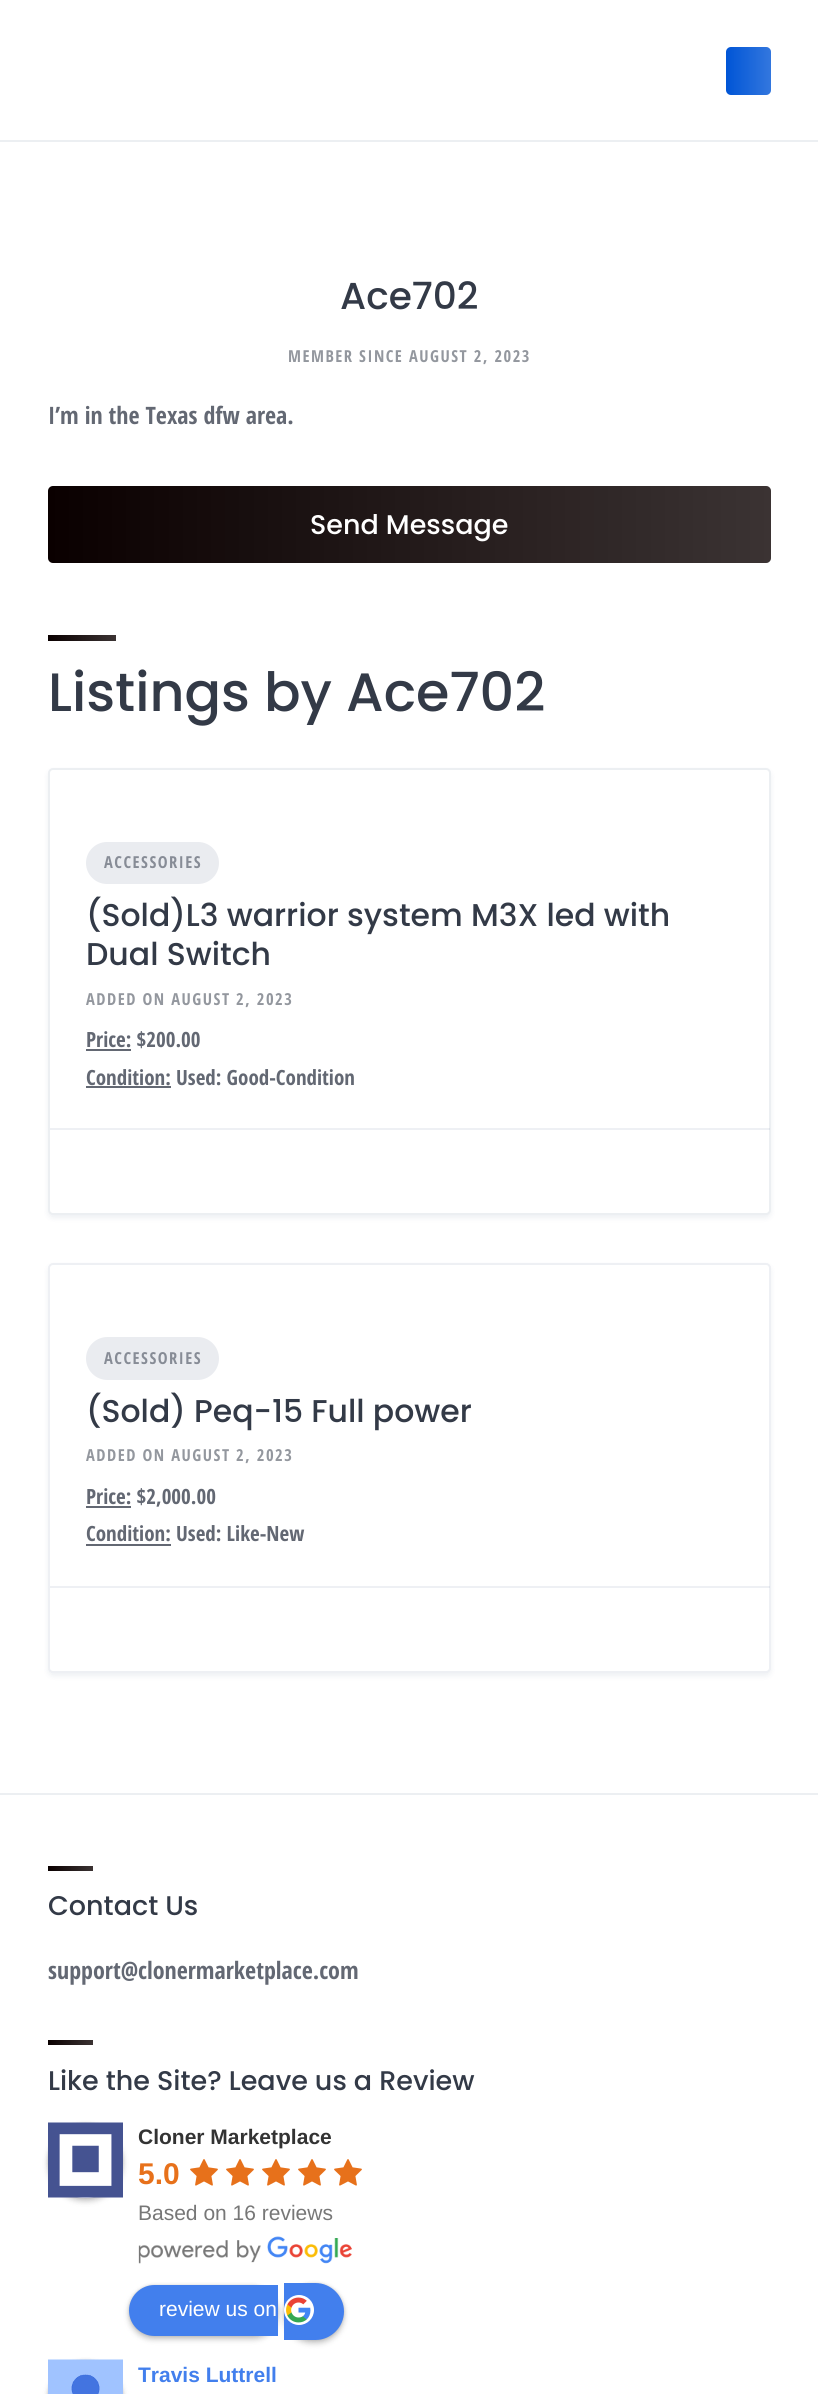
#include <cairo/cairo.h>
#include <math.h>
#include <stddef.h>

static cairo_t *cr;

static void rgb(unsigned color)
{
	cairo_set_source_rgb(cr, (color >> 16) / 255.0, (color >> 8 & 255) / 255.0, (color & 255) / 255.0);
}

static void tracked(double x, double y, const char *s, double letter, double word)
{
	cairo_move_to(cr, x, y);
	while (*s) {
		char ch[5] = {0};
		int n = 0;
		do ch[n++] = *s++; while ((*s & 0xC0) == 0x80);
		cairo_show_text(cr, ch);
		cairo_rel_move_to(cr, letter + word * (*ch == ' '), 0);
	}
}

static void rrect(double x, double y, double w, double h, double r)
{
	cairo_new_sub_path(cr);
	cairo_arc(cr, x + w - r, y + h - r, r, 0, M_PI / 2);
	cairo_arc(cr, x + r, y + h - r, r, M_PI / 2, M_PI);
	cairo_arc(cr, x + r, y + r, r, M_PI, 1.5 * M_PI);
	cairo_arc(cr, x + w - r, y + r, r, 1.5 * M_PI, 2 * M_PI);
	cairo_close_path(cr);
}

static void soft_shadow(double x, double y, double w, double h, double r, double blur, double alpha)
{
	cairo_push_group_with_content(cr, CAIRO_CONTENT_ALPHA);
	cairo_set_operator(cr, CAIRO_OPERATOR_SOURCE);
	for (int i = 15; i >= -15 && fmin(w, h) + blur * i / 3 > 0; i -= 2) {
		double e = blur * i / 6;
		cairo_set_source_rgba(cr, 0, 0, 0, alpha * erfc((i - 1) / 8.5) / 2);
		rrect(x - e, y - e, w + 2 * e, h + 2 * e, fmax(0, fmin(r + e + blur * .6, fmin(w, h) / 2 + e)));
		cairo_fill(cr);
	}
	cairo_pattern_t *soft = cairo_pop_group(cr);
	cairo_mask(cr, soft);
	cairo_pattern_destroy(soft);
}

static void image(const char *path, double x, double y, double w, double h)
{
	cairo_surface_t *image = cairo_image_surface_create_from_png(path);
	cairo_save(cr);
	cairo_set_source_surface(cr, image, x, y);
	cairo_rectangle(cr, x, y, w, h);
	cairo_fill(cr);
	cairo_restore(cr);
	cairo_surface_destroy(image);
}

int main(void) {
	cairo_surface_t *surface = cairo_image_surface_create(CAIRO_FORMAT_RGB24, 818, 2394);
	cr = cairo_create(surface);
	cairo_font_options_t *options = cairo_font_options_create();
	cairo_font_options_set_hint_metrics(options, CAIRO_HINT_METRICS_OFF);
	cairo_font_options_set_hint_style(options, CAIRO_HINT_STYLE_NONE);
	cairo_set_font_options(cr, options);
	cairo_set_miter_limit(cr, 4);
	cairo_pattern_t *gradient;
	rgb(0xffffff);
	cairo_paint(cr);
	rgb(0xeceff2);
	cairo_rectangle(cr, 0, 140, 818, 2);
	cairo_fill(cr);
	rgb(0x0055d6);
	rrect(726, 47, 45, 48, 5);
	cairo_fill(cr);
	gradient = cairo_pattern_create_linear(726, 71, 771, 71);
	cairo_pattern_add_color_stop_rgba(gradient, 0, 1, 1, 1, 0);
	cairo_pattern_add_color_stop_rgba(gradient, 1, 1, 1, 1, 0.2);
	cairo_set_source(cr, gradient);
	cairo_pattern_destroy(gradient);
	rrect(726, 47, 45, 48, 5);
	cairo_fill(cr);
	rgb(0x0a0000);
	rrect(48, 486, 723, 77, 5);
	cairo_fill(cr);
	gradient = cairo_pattern_create_linear(48, 524, 771, 524);
	cairo_pattern_add_color_stop_rgba(gradient, 0, 1, 1, 1, 0);
	cairo_pattern_add_color_stop_rgba(gradient, 1, 1, 1, 1, 0.2);
	cairo_set_source(cr, gradient);
	cairo_pattern_destroy(gradient);
	rrect(48, 486, 723, 77, 5);
	cairo_fill(cr);
	gradient = cairo_pattern_create_linear(48, 638, 116, 638);
	cairo_pattern_add_color_stop_rgba(gradient, 0, 0.039, 0, 0, 1);
	cairo_pattern_add_color_stop_rgba(gradient, 1, 0.231, 0.2, 0.2, 1);
	cairo_set_source(cr, gradient);
	cairo_pattern_destroy(gradient);
	cairo_rectangle(cr, 48, 635, 68, 6);
	cairo_fill(cr);
	rgb(0x072456);
	soft_shadow(48, 771, 723, 447, 5, 3, 0.07);
	rgb(0xffffff);
	rrect(49, 769, 721, 445, 4);
	cairo_fill_preserve(cr);
	rgb(0xeceff2);
	cairo_stroke(cr);
	rgb(0xeaecf0);
	rrect(86, 842, 133, 42, 21);
	cairo_fill(cr);
	rgb(0x636873);
	cairo_rectangle(cr, 86, 1049, 45, 2);
	cairo_fill(cr);
	cairo_rectangle(cr, 86, 1086, 85, 2);
	cairo_fill(cr);
	cairo_set_source_rgba(cr, 0.027, 0.141, 0.337, 0.07);
	cairo_rectangle(cr, 50, 1128, 720, 2);
	cairo_fill(cr);
	rgb(0x072456);
	soft_shadow(48, 1266, 723, 410, 5, 3, 0.07);
	rgb(0xffffff);
	rrect(48, 1263, 723, 410, 5);
	cairo_fill(cr);
	rrect(49, 1264, 721, 408, 4);
	cairo_set_source_rgba(cr, 0.027, 0.141, 0.337, 0.07);
	cairo_stroke(cr);
	rgb(0xeaecf0);
	rrect(86, 1337, 133, 43, 21.5);
	cairo_fill(cr);
	rgb(0x636873);
	cairo_rectangle(cr, 86, 1506, 45, 2);
	cairo_fill(cr);
	cairo_rectangle(cr, 86, 1544, 85, 2);
	cairo_fill(cr);
	cairo_set_source_rgba(cr, 0.027, 0.141, 0.337, 0.07);
	cairo_rectangle(cr, 50, 1586, 720, 2);
	cairo_fill(cr);
	rgb(0xeceff2);
	cairo_rectangle(cr, 0, 1793, 818, 2);
	cairo_fill(cr);
	gradient = cairo_pattern_create_linear(48, 1868, 93, 1868);
	cairo_pattern_add_color_stop_rgba(gradient, 0, 0.039, 0, 0, 1);
	cairo_pattern_add_color_stop_rgba(gradient, 1, 0.231, 0.2, 0.2, 1);
	cairo_set_source(cr, gradient);
	cairo_pattern_destroy(gradient);
	cairo_rectangle(cr, 48, 1866, 45, 5);
	cairo_fill(cr);
	gradient = cairo_pattern_create_linear(48, 2042, 93, 2042);
	cairo_pattern_add_color_stop_rgba(gradient, 0, 0.039, 0, 0, 1);
	cairo_pattern_add_color_stop_rgba(gradient, 1, 0.231, 0.2, 0.2, 1);
	cairo_set_source(cr, gradient);
	cairo_pattern_destroy(gradient);
	cairo_rectangle(cr, 48, 2040, 45, 5);
	cairo_fill(cr);
	cairo_save(cr);
	cairo_set_fill_rule(cr, CAIRO_FILL_RULE_EVEN_ODD);
	cairo_new_path(cr);
	cairo_move_to(cr, 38, 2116);
	cairo_line_to(cr, 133, 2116);
	cairo_line_to(cr, 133, 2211);
	cairo_line_to(cr, 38, 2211);
	cairo_close_path(cr);
	cairo_move_to(cr, 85.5, 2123);
	cairo_curve_to(cr, 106, 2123, 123, 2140, 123, 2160.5);
	cairo_curve_to(cr, 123, 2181, 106, 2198, 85.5, 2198);
	cairo_curve_to(cr, 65, 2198, 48, 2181, 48, 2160.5);
	cairo_curve_to(cr, 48, 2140, 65, 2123, 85.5, 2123);
	cairo_close_path(cr);
	cairo_clip(cr);
	rgb(0x000000);
	soft_shadow(48, 2126, 75, 75, 37.5, 3, 0.24);
	cairo_restore(cr);
	cairo_save(cr);
	cairo_set_fill_rule(cr, CAIRO_FILL_RULE_EVEN_ODD);
	cairo_new_path(cr);
	cairo_move_to(cr, 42, 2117);
	cairo_line_to(cr, 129, 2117);
	cairo_line_to(cr, 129, 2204);
	cairo_line_to(cr, 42, 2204);
	cairo_close_path(cr);
	cairo_move_to(cr, 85.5, 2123);
	cairo_curve_to(cr, 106, 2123, 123, 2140, 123, 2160.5);
	cairo_curve_to(cr, 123, 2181, 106, 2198, 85.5, 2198);
	cairo_curve_to(cr, 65, 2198, 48, 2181, 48, 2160.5);
	cairo_curve_to(cr, 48, 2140, 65, 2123, 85.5, 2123);
	cairo_close_path(cr);
	cairo_clip(cr);
	rgb(0x000000);
	soft_shadow(48, 2123, 75, 75, 37.5, 1.5, 0.12);
	cairo_restore(cr);
	image("img/1.png", 48, 2122, 75, 76);
	image("img/2.png", 190, 2159, 28, 27);
	image("img/2.png", 226, 2159, 28, 27);
	image("img/2.png", 262, 2159, 28, 27);
	image("img/2.png", 298, 2159, 28, 27);
	image("img/2.png", 334, 2159, 28, 27);
	image("img/3.png", 138, 2236, 214, 28);
	rgb(0x000000);
	soft_shadow(129, 2288, 149, 51, 25.5, 3, 0.24);
	soft_shadow(129, 2285, 149, 51, 25.5, 1.5, 0.12);
	rgb(0x427fed);
	cairo_new_path(cr);
	cairo_move_to(cr, 154.5, 2285);
	cairo_line_to(cr, 278, 2285);
	cairo_line_to(cr, 278, 2336);
	cairo_line_to(cr, 154.5, 2336);
	cairo_curve_to(cr, 140.5, 2336, 129, 2324.5, 129, 2310.5);
	cairo_curve_to(cr, 129, 2296.5, 140.5, 2285, 154.5, 2285);
	cairo_close_path(cr);
	cairo_fill(cr);
	rgb(0x000000);
	soft_shadow(284, 2286, 60, 57, 28.5, 3, 0.24);
	soft_shadow(284, 2283, 60, 57, 28.5, 1.5, 0.12);
	rgb(0x427fed);
	cairo_new_path(cr);
	cairo_move_to(cr, 284, 2283);
	cairo_line_to(cr, 315.5, 2283);
	cairo_curve_to(cr, 331, 2283, 344, 2296, 344, 2311.5);
	cairo_curve_to(cr, 344, 2327, 331, 2340, 315.5, 2340);
	cairo_line_to(cr, 284, 2340);
	cairo_close_path(cr);
	cairo_fill(cr);
	rgb(0xffffff);
	cairo_arc(cr, 299, 2310, 15, 0, 2 * M_PI);
	cairo_fill(cr);
	image("img/4.png", 286, 2297, 25, 26);
	rgb(0x000000);
	soft_shadow(48, 2363, 75, 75, 37.5, 3, 0.24);
	soft_shadow(48, 2360, 75, 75, 37.5, 1.5, 0.12);
	image("img/5.png", 48, 2359, 75, 35);
	cairo_select_font_face(cr, "Poppins Medium", CAIRO_FONT_SLANT_NORMAL, CAIRO_FONT_WEIGHT_NORMAL);
	cairo_set_font_size(cr, 37.5);
	rgb(0x333a47);
	cairo_move_to(cr, 340, 309);
	cairo_show_text(cr, "Ace702");
	cairo_select_font_face(cr, "Open Sans Condensed", CAIRO_FONT_SLANT_NORMAL, CAIRO_FONT_WEIGHT_BOLD);
	cairo_set_font_size(cr, 16.5);
	rgb(0x93979e);
	tracked(288, 362, "MEMBER SINCE AUGUST 2, 2023", 1.5, 0);
	cairo_set_font_size(cr, 24);
	rgb(0x636873);
	cairo_move_to(cr, 48, 424);
	cairo_show_text(cr, "I’m in the Texas dfw area.");
	cairo_select_font_face(cr, "Poppins Medium", CAIRO_FONT_SLANT_NORMAL, CAIRO_FONT_WEIGHT_NORMAL);
	cairo_set_font_size(cr, 27);
	rgb(0xffffff);
	cairo_move_to(cr, 310, 534);
	cairo_show_text(cr, "Send Message");
	cairo_set_font_size(cr, 54);
	rgb(0x333a47);
	cairo_move_to(cr, 48, 711);
	cairo_show_text(cr, "Listings by Ace702");
	cairo_select_font_face(cr, "Open Sans Condensed", CAIRO_FONT_SLANT_NORMAL, CAIRO_FONT_WEIGHT_BOLD);
	cairo_set_font_size(cr, 16.5);
	rgb(0x878c96);
	tracked(104, 868, "ACCESSORIES", 1.5, 0);
	cairo_select_font_face(cr, "Poppins Medium", CAIRO_FONT_SLANT_NORMAL, CAIRO_FONT_WEIGHT_NORMAL);
	cairo_set_font_size(cr, 31.5);
	rgb(0x333a47);
	cairo_move_to(cr, 86, 926);
	cairo_show_text(cr, "(Sold)L3 warrior system M3X led with");
	cairo_move_to(cr, 86, 965);
	cairo_show_text(cr, "Dual Switch");
	cairo_select_font_face(cr, "Open Sans Condensed", CAIRO_FONT_SLANT_NORMAL, CAIRO_FONT_WEIGHT_BOLD);
	cairo_set_font_size(cr, 16.5);
	rgb(0x93979e);
	tracked(86, 1005, "ADDED ON AUGUST 2, 2023", 1.5, 0);
	cairo_set_font_size(cr, 21);
	rgb(0x636873);
	cairo_move_to(cr, 86, 1047);
	cairo_show_text(cr, "Price: $200.00");
	cairo_move_to(cr, 86, 1085);
	cairo_show_text(cr, "Condition: Used: Good-Condition");
	cairo_set_font_size(cr, 16.5);
	rgb(0x878c96);
	tracked(104, 1364, "ACCESSORIES", 1.5, 0);
	cairo_select_font_face(cr, "Poppins Medium", CAIRO_FONT_SLANT_NORMAL, CAIRO_FONT_WEIGHT_NORMAL);
	cairo_set_font_size(cr, 31.5);
	rgb(0x333a47);
	cairo_move_to(cr, 86, 1422);
	cairo_show_text(cr, "(Sold) Peq-15 Full power");
	cairo_select_font_face(cr, "Open Sans Condensed", CAIRO_FONT_SLANT_NORMAL, CAIRO_FONT_WEIGHT_BOLD);
	cairo_set_font_size(cr, 16.5);
	rgb(0x93979e);
	tracked(86, 1461, "ADDED ON AUGUST 2, 2023", 1.5, 0);
	cairo_set_font_size(cr, 21);
	rgb(0x636873);
	cairo_move_to(cr, 86, 1504);
	cairo_show_text(cr, "Price: $2,000.00");
	cairo_move_to(cr, 86, 1541);
	cairo_show_text(cr, "Condition: Used: Like-New");
	cairo_select_font_face(cr, "Poppins Medium", CAIRO_FONT_SLANT_NORMAL, CAIRO_FONT_WEIGHT_NORMAL);
	cairo_set_font_size(cr, 27);
	rgb(0x333a47);
	cairo_move_to(cr, 48, 1915);
	cairo_show_text(cr, "Contact Us");
	cairo_select_font_face(cr, "Open Sans Condensed", CAIRO_FONT_SLANT_NORMAL, CAIRO_FONT_WEIGHT_BOLD);
	cairo_set_font_size(cr, 24);
	rgb(0x636873);
	cairo_move_to(cr, 48, 1979);
	cairo_show_text(cr, "support@clonermarketplace.com");
	cairo_select_font_face(cr, "Poppins Medium", CAIRO_FONT_SLANT_NORMAL, CAIRO_FONT_WEIGHT_NORMAL);
	cairo_set_font_size(cr, 27);
	rgb(0x333a47);
	cairo_move_to(cr, 48, 2090);
	cairo_show_text(cr, "Like the Site? Leave us a Review");
	cairo_select_font_face(cr, "Liberation Sans", CAIRO_FONT_SLANT_NORMAL, CAIRO_FONT_WEIGHT_BOLD);
	cairo_set_font_size(cr, 21);
	rgb(0x333333);
	cairo_move_to(cr, 138, 2144);
	cairo_show_text(cr, "Cloner Marketplace");
	cairo_set_font_size(cr, 30);
	rgb(0xe7711b);
	cairo_move_to(cr, 138, 2184);
	cairo_show_text(cr, "5.0");
	cairo_select_font_face(cr, "Liberation Sans", CAIRO_FONT_SLANT_NORMAL, CAIRO_FONT_WEIGHT_NORMAL);
	cairo_set_font_size(cr, 21);
	rgb(0x777777);
	cairo_move_to(cr, 138, 2220);
	cairo_show_text(cr, "Based on 16 reviews");
	rgb(0xffffff);
	cairo_move_to(cr, 159, 2316);
	cairo_show_text(cr, "review us on");
	cairo_select_font_face(cr, "Liberation Sans", CAIRO_FONT_SLANT_NORMAL, CAIRO_FONT_WEIGHT_BOLD);
	rgb(0x427fed);
	cairo_move_to(cr, 138, 2382);
	cairo_show_text(cr, "Travis Luttrell");
	cairo_surface_write_to_png(surface, "page.png");
	cairo_font_options_destroy(options);
	cairo_destroy(cr);
	cairo_surface_destroy(surface);
	return 0;
}
